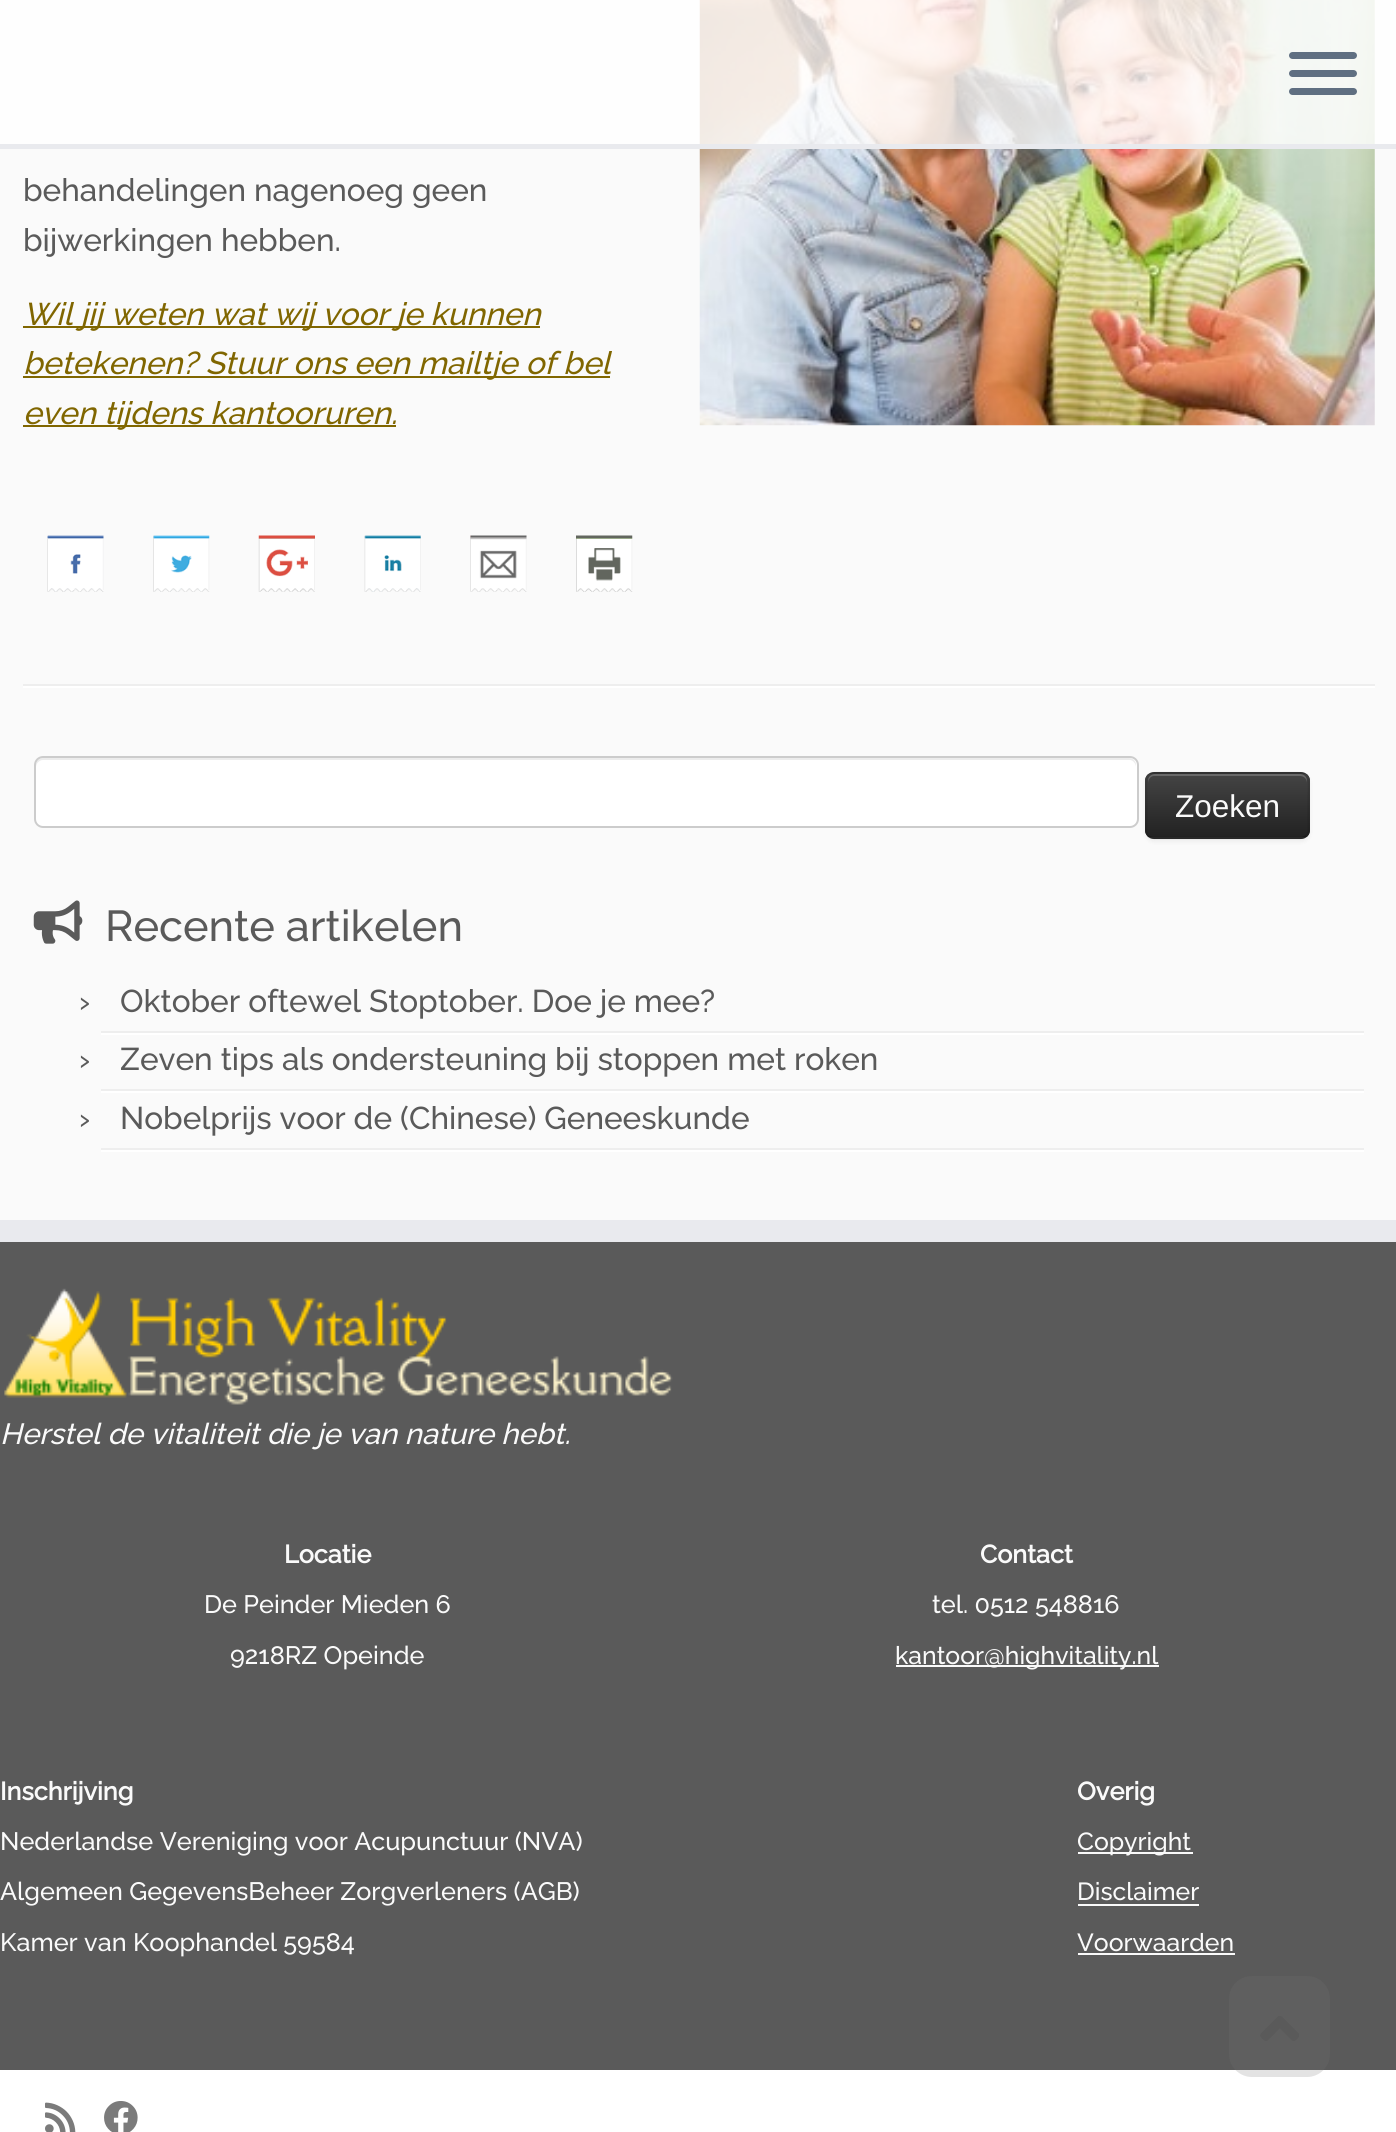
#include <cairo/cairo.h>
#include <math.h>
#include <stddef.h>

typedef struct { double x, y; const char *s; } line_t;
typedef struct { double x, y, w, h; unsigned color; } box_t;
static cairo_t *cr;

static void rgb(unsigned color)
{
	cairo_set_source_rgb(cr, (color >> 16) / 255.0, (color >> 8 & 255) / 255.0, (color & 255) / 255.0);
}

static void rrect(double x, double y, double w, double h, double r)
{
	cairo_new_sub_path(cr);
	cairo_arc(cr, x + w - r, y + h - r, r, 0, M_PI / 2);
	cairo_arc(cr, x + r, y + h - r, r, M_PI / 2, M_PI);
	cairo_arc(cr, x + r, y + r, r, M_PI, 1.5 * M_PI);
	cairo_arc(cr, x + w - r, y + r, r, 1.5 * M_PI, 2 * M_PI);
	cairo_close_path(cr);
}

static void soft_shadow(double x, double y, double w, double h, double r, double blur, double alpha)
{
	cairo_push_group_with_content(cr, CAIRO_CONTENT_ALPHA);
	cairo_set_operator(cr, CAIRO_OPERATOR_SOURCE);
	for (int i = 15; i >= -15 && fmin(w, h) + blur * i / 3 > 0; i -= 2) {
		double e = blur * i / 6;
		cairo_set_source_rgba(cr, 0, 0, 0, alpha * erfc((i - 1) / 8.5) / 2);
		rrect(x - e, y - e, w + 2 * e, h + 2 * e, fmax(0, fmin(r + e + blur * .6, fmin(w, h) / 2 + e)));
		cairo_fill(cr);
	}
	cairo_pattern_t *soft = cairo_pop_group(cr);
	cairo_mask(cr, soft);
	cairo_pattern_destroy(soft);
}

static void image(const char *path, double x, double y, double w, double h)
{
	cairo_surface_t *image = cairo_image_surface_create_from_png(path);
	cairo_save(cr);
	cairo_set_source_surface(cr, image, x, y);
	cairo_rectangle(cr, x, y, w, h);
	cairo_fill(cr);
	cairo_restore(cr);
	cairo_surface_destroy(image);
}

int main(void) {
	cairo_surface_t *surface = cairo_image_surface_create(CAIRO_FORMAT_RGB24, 1396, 2132);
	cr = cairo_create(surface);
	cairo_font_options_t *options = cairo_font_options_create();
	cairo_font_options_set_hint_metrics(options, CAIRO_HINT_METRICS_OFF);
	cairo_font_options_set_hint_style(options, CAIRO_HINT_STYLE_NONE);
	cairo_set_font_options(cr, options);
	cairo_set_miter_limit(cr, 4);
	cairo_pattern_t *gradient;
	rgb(0xfafafa);
	cairo_paint(cr);
	image("img/1.png", 699, 0, 676, 426);
	cairo_set_source_rgba(cr, 1, 1, 1, 0.8);
	cairo_rectangle(cr, 0, 0, 1396, 144);
	cairo_fill(cr);
	rgb(0xe9eaee);
	cairo_rectangle(cr, 0, 144, 1396, 5);
	cairo_fill(cr);
	rgb(0x5f6f81);
	rrect(1289, 52, 68, 7, 3.5);
	cairo_fill(cr);
	rrect(1289, 70, 68, 7, 3.5);
	cairo_fill(cr);
	rrect(1289, 88, 68, 7, 3.5);
	cairo_fill(cr);
	{
		static const box_t items[] = {
			{23, 326, 517, 2, 0x806600},
			{23, 376, 587, 2, 0x806600},
			{23, 425, 373, 2, 0x806600},
		};
		for (size_t i = 0; i < sizeof items / sizeof *items; i++) {
			rgb(items[i].color);
			cairo_rectangle(cr, items[i].x, items[i].y, items[i].w, items[i].h);
			cairo_fill(cr);
		}
	}
	image("img/2.png", 47, 535, 57, 57);
	image("img/3.png", 153, 535, 57, 57);
	image("img/4.png", 258, 535, 57, 57);
	image("img/5.png", 364, 535, 57, 57);
	image("img/6.png", 470, 535, 57, 57);
	image("img/7.png", 576, 535, 57, 57);
	rgb(0xeeeeee);
	cairo_rectangle(cr, 23, 684, 1352, 2);
	cairo_fill(cr);
	rgb(0xffffff);
	cairo_rectangle(cr, 23, 686, 1352, 2);
	cairo_fill(cr);
	rrect(34, 756, 1105, 72, 9);
	cairo_fill(cr);
	rgb(0xececec);
	cairo_new_path(cr);
	cairo_move_to(cr, 43, 760);
	cairo_line_to(cr, 1130, 760);
	cairo_curve_to(cr, 1133, 760, 1136, 764, 1136, 767);
	cairo_line_to(cr, 1136, 765);
	cairo_curve_to(cr, 1136, 761, 1133, 758, 1129, 758);
	cairo_line_to(cr, 43, 758);
	cairo_curve_to(cr, 39, 758, 36, 761, 36, 765);
	cairo_line_to(cr, 36, 767);
	cairo_curve_to(cr, 36, 764, 39, 760, 43, 760);
	cairo_close_path(cr);
	cairo_fill(cr);
	rrect(35, 757, 1103, 70, 8);
	rgb(0xcccccc);
	cairo_stroke(cr);
	rgb(0x000000);
	soft_shadow(1145, 774, 165, 68, 9, 2, 0.05);
	rgb(0x363636);
	rrect(1145, 772, 165, 67, 9);
	cairo_fill(cr);
	cairo_save(cr);
	rrect(1145, 772, 165, 67, 9);
	cairo_clip(cr);
	gradient = cairo_pattern_create_linear(1227, 774, 1227, 837);
	cairo_pattern_add_color_stop_rgba(gradient, 0, 0.267, 0.267, 0.267, 1);
	cairo_pattern_add_color_stop_rgba(gradient, 1, 0.133, 0.133, 0.133, 1);
	cairo_set_source(cr, gradient);
	cairo_pattern_destroy(gradient);
	cairo_rectangle(cr, 1145, 774, 165, 63);
	cairo_fill(cr);
	cairo_restore(cr);
	cairo_set_source_rgba(cr, 1, 1, 1, 0.2);
	cairo_new_path(cr);
	cairo_move_to(cr, 1154, 776);
	cairo_line_to(cr, 1300, 776);
	cairo_curve_to(cr, 1304, 776, 1307, 779, 1307, 783);
	cairo_line_to(cr, 1307, 781);
	cairo_curve_to(cr, 1307, 777, 1304, 774, 1300, 774);
	cairo_line_to(cr, 1155, 774);
	cairo_curve_to(cr, 1151, 774, 1148, 777, 1148, 781);
	cairo_line_to(cr, 1148, 783);
	cairo_curve_to(cr, 1148, 779, 1151, 776, 1154, 776);
	cairo_close_path(cr);
	cairo_fill(cr);
	cairo_new_path(cr);
	cairo_move_to(cr, 1306, 836);
	cairo_curve_to(cr, 1304.5, 837.5, 1302.5, 838, 1300.5, 838);
	cairo_line_to(cr, 1154, 838);
	cairo_curve_to(cr, 1152, 838, 1150, 837.5, 1148.5, 836);
	cairo_set_source_rgba(cr, 0, 0, 0, 0.25);
	cairo_set_line_width(cr, 2.2);
	cairo_stroke(cr);
	cairo_new_path(cr);
	cairo_move_to(cr, 1148.5, 836);
	cairo_curve_to(cr, 1145, 832.5, 1146.5, 826.5, 1146.5, 822);
	cairo_line_to(cr, 1146.5, 805.5);
	cairo_curve_to(cr, 1146.5, 768.5, 1141, 773, 1178.5, 773);
	cairo_line_to(cr, 1276, 773);
	cairo_curve_to(cr, 1314, 773, 1308.5, 768.5, 1308.5, 805.5);
	cairo_line_to(cr, 1308.5, 822);
	cairo_curve_to(cr, 1308.5, 826.5, 1309.5, 832.5, 1306, 836);
	cairo_set_source_rgba(cr, 0, 0, 0, 0.1);
	cairo_stroke(cr);
	image("img/8.png", 33, 900, 50, 44);
	{
		static const box_t items[] = {
			{101, 1031, 1263, 2, 0xeeeeee},
			{101, 1033, 1263, 2, 0xffffff},
			{101, 1089, 1263, 2, 0xeeeeee},
			{101, 1091, 1263, 2, 0xffffff},
			{101, 1148, 1263, 2, 0xeeeeee},
			{101, 1150, 1263, 2, 0xffffff},
			{0, 1242, 1396, 828, 0x5a5a5a},
			{0, 1220, 1396, 22, 0xe9eaee},
		};
		for (size_t i = 0; i < sizeof items / sizeof *items; i++) {
			rgb(items[i].color);
			cairo_rectangle(cr, items[i].x, items[i].y, items[i].w, items[i].h);
			cairo_fill(cr);
		}
	}
	image("img/9.png", 4, 1288, 669, 117);
	{
		static const box_t items[] = {
			{896, 1665, 263, 2, 0xfafafa},
			{1078, 1852, 115, 2, 0xfafafa},
			{1078, 1904, 121, 2, 0xfafafa},
			{1078, 1953, 157, 2, 0xfafafa},
			{0, 2070, 1396, 62, 0xffffff},
		};
		for (size_t i = 0; i < sizeof items / sizeof *items; i++) {
			rgb(items[i].color);
			cairo_rectangle(cr, items[i].x, items[i].y, items[i].w, items[i].h);
			cairo_fill(cr);
		}
	}
	image("img/10.png", 45, 2102, 31, 30);
	image("img/11.png", 104, 2101, 34, 31);
	cairo_set_source_rgba(cr, 0.467, 0.467, 0.467, 0.2);
	rrect(1229, 1976, 101, 101, 23);
	cairo_fill(cr);
	image("img/12.png", 1260, 2016, 39, 25);
	cairo_select_font_face(cr, "Raleway Medium", CAIRO_FONT_SLANT_NORMAL, CAIRO_FONT_WEIGHT_NORMAL);
	cairo_set_font_size(cr, 31.5);
	rgb(0x5a5a5a);
	cairo_move_to(cr, 23, 201);
	cairo_show_text(cr, "behandelingen nagenoeg geen");
	cairo_move_to(cr, 23, 251);
	cairo_show_text(cr, "bijwerkingen hebben.");
	cairo_select_font_face(cr, "Raleway Medium", CAIRO_FONT_SLANT_ITALIC, CAIRO_FONT_WEIGHT_NORMAL);
	rgb(0x806600);
	{
		static const line_t items[] = {
			{23, 325, "Wil jij weten wat wij voor je kunnen"},
			{23, 374, "betekenen? Stuur ons een mailtje of bel"},
			{23, 424, "even tijdens kantooruren."},
		};
		for (size_t i = 0; i < sizeof items / sizeof *items; i++) {
			cairo_move_to(cr, items[i].x, items[i].y);
			cairo_show_text(cr, items[i].s);
		}
	}
	cairo_select_font_face(cr, "Liberation Sans", CAIRO_FONT_SLANT_NORMAL, CAIRO_FONT_WEIGHT_NORMAL);
	rgb(0xfafafa);
	cairo_move_to(cr, 1175, 817);
	cairo_show_text(cr, "Zoeken");
	cairo_select_font_face(cr, "Raleway Medium", CAIRO_FONT_SLANT_NORMAL, CAIRO_FONT_WEIGHT_NORMAL);
	cairo_set_font_size(cr, 43.25);
	rgb(0x5a5a5a);
	cairo_move_to(cr, 105, 941);
	cairo_show_text(cr, "Recente artikelen");
	cairo_set_font_size(cr, 31.5);
	{
		static const line_t items[] = {
			{79, 1012, "›"},
			{120, 1012, "Oktober oftewel Stoptober. Doe je mee?"},
			{79, 1070, "›"},
			{120, 1070, "Zeven tips als ondersteuning bij stoppen met roken"},
			{79, 1129, "›"},
			{120, 1129, "Nobelprijs voor de (Chinese) Geneeskunde"},
		};
		for (size_t i = 0; i < sizeof items / sizeof *items; i++) {
			cairo_move_to(cr, items[i].x, items[i].y);
			cairo_show_text(cr, items[i].s);
		}
	}
	cairo_select_font_face(cr, "Raleway Medium", CAIRO_FONT_SLANT_ITALIC, CAIRO_FONT_WEIGHT_NORMAL);
	cairo_set_font_size(cr, 29.25);
	rgb(0xfafafa);
	cairo_move_to(cr, 0, 1444);
	cairo_show_text(cr, "Herstel de vitaliteit die je van nature hebt.");
	cairo_select_font_face(cr, "Raleway", CAIRO_FONT_SLANT_NORMAL, CAIRO_FONT_WEIGHT_BOLD);
	cairo_set_font_size(cr, 25.2);
	cairo_move_to(cr, 284, 1563);
	cairo_show_text(cr, "Locatie");
	cairo_select_font_face(cr, "Raleway Medium", CAIRO_FONT_SLANT_NORMAL, CAIRO_FONT_WEIGHT_NORMAL);
	cairo_move_to(cr, 204, 1613);
	cairo_show_text(cr, "De Peinder Mieden 6");
	cairo_move_to(cr, 230, 1664);
	cairo_show_text(cr, "9218RZ Opeinde");
	cairo_select_font_face(cr, "Raleway", CAIRO_FONT_SLANT_NORMAL, CAIRO_FONT_WEIGHT_BOLD);
	cairo_move_to(cr, 980, 1563);
	cairo_show_text(cr, "Contact");
	cairo_select_font_face(cr, "Raleway Medium", CAIRO_FONT_SLANT_NORMAL, CAIRO_FONT_WEIGHT_NORMAL);
	cairo_move_to(cr, 932, 1613);
	cairo_show_text(cr, "tel. 0512 548816");
	cairo_set_font_size(cr, 24.75);
	cairo_move_to(cr, 895, 1664);
	cairo_show_text(cr, "kantoor@highvitality.nl");
	cairo_select_font_face(cr, "Raleway", CAIRO_FONT_SLANT_NORMAL, CAIRO_FONT_WEIGHT_BOLD);
	cairo_set_font_size(cr, 25.2);
	cairo_move_to(cr, 0, 1800);
	cairo_show_text(cr, "Inschrijving");
	cairo_select_font_face(cr, "Raleway Medium", CAIRO_FONT_SLANT_NORMAL, CAIRO_FONT_WEIGHT_NORMAL);
	{
		static const line_t items[] = {
			{0, 1850, "Nederlandse Vereniging voor Acupunctuur (NVA)"},
			{0, 1900, "Algemeen GegevensBeheer Zorgverleners (AGB)"},
			{0, 1951, "Kamer van Koophandel 59584"},
		};
		for (size_t i = 0; i < sizeof items / sizeof *items; i++) {
			cairo_move_to(cr, items[i].x, items[i].y);
			cairo_show_text(cr, items[i].s);
		}
	}
	cairo_select_font_face(cr, "Raleway", CAIRO_FONT_SLANT_NORMAL, CAIRO_FONT_WEIGHT_BOLD);
	cairo_move_to(cr, 1077, 1800);
	cairo_show_text(cr, "Overig");
	cairo_select_font_face(cr, "Raleway Medium", CAIRO_FONT_SLANT_NORMAL, CAIRO_FONT_WEIGHT_NORMAL);
	cairo_set_font_size(cr, 24.75);
	{
		static const line_t items[] = {
			{1077, 1850, "Copyright"},
			{1077, 1900, "Disclaimer"},
			{1077, 1951, "Voorwaarden"},
		};
		for (size_t i = 0; i < sizeof items / sizeof *items; i++) {
			cairo_move_to(cr, items[i].x, items[i].y);
			cairo_show_text(cr, items[i].s);
		}
	}
	cairo_surface_write_to_png(surface, "page.png");
	cairo_font_options_destroy(options);
	cairo_destroy(cr);
	cairo_surface_destroy(surface);
	return 0;
}
